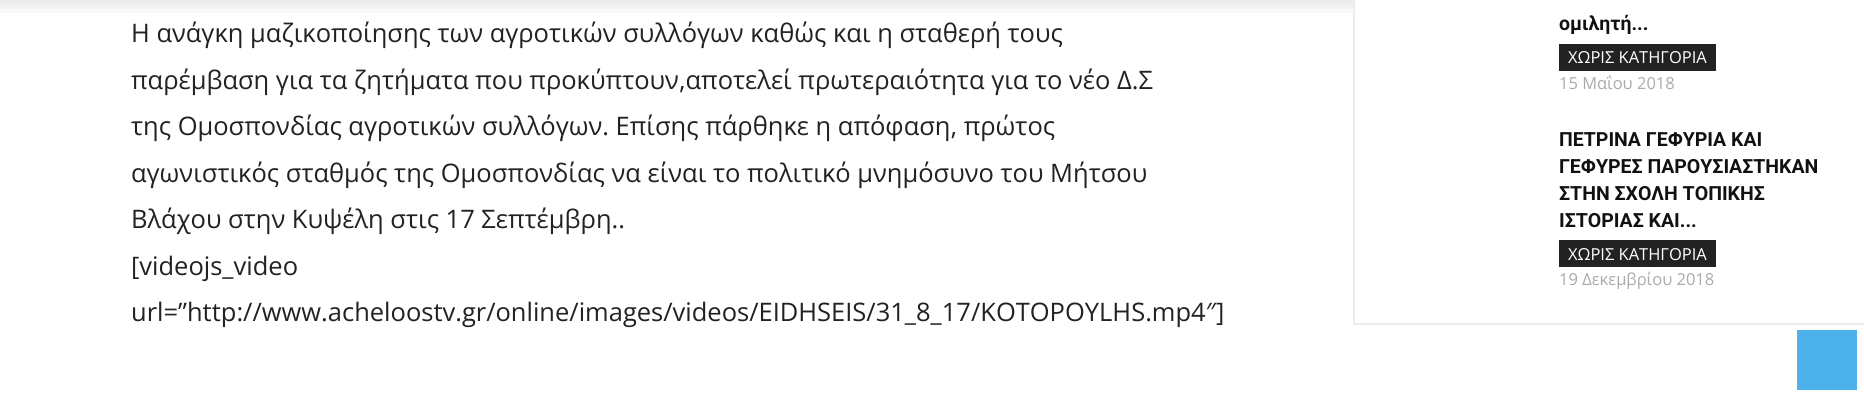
#include <cairo/cairo.h>
#include <math.h>
#include <stddef.h>

typedef struct { double x, y; const char *s; } line_t;
typedef struct { double x, y, w, h; unsigned color; } box_t;
static cairo_t *cr;

static void rgb(unsigned color)
{
	cairo_set_source_rgb(cr, (color >> 16) / 255.0, (color >> 8 & 255) / 255.0, (color & 255) / 255.0);
}

static void image(const char *path, double x, double y, double w, double h)
{
	cairo_surface_t *image = cairo_image_surface_create_from_png(path);
	cairo_save(cr);
	cairo_set_source_surface(cr, image, x, y);
	cairo_rectangle(cr, x, y, w, h);
	cairo_fill(cr);
	cairo_restore(cr);
	cairo_surface_destroy(image);
}

int main(void) {
	cairo_surface_t *surface = cairo_image_surface_create(CAIRO_FORMAT_RGB24, 1864, 395);
	cr = cairo_create(surface);
	cairo_font_options_t *options = cairo_font_options_create();
	cairo_font_options_set_hint_metrics(options, CAIRO_HINT_METRICS_OFF);
	cairo_font_options_set_hint_style(options, CAIRO_HINT_STYLE_NONE);
	cairo_set_font_options(cr, options);
	cairo_set_miter_limit(cr, 4);
	rgb(0xffffff);
	cairo_paint(cr);
	image("img/1.png", 0, 0, 1353, 13);
	{
		static const box_t items[] = {
			{1353, 323, 511, 2, 0xededed},
			{1353, 0, 2, 324, 0xededed},
			{1559, 44, 157, 27, 0x222222},
			{1559, 240, 157, 27, 0x222222},
			{1797, 330, 60, 60, 0x4db2ec},
		};
		for (size_t i = 0; i < sizeof items / sizeof *items; i++) {
			rgb(items[i].color);
			cairo_rectangle(cr, items[i].x, items[i].y, items[i].w, items[i].h);
			cairo_fill(cr);
		}
	}
	cairo_select_font_face(cr, "Open Sans", CAIRO_FONT_SLANT_NORMAL, CAIRO_FONT_WEIGHT_NORMAL);
	cairo_set_font_size(cr, 25.5);
	rgb(0x222222);
	{
		static const line_t items[] = {
			{131, 42, "Η ανάγκη μαζικοποίησης των αγροτικών συλλόγων καθώς και η σταθερή τους"},
			{131, 89, "παρέμβαση για τα ζητήματα που προκύπτουν,αποτελεί πρωτεραιότητα για το νέο Δ.Σ"},
			{131, 135, "της Ομοσπονδίας αγροτικών συλλόγων. Επίσης πάρθηκε η απόφαση, πρώτος"},
			{131, 182, "αγωνιστικός σταθμός της Ομοσπονδίας να είναι το πολιτικό μνημόσυνο του Μήτσου"},
			{131, 228, "Βλάχου στην Κυψέλη στις 17 Σεπτέμβρη.."},
			{131, 275, "[videojs_video"},
			{131, 321, "url=”http://www.acheloostv.gr/online/images/videos/EIDHSEIS/31_8_17/KOTOPOYLHS.mp4″]"},
		};
		for (size_t i = 0; i < sizeof items / sizeof *items; i++) {
			cairo_move_to(cr, items[i].x, items[i].y);
			cairo_show_text(cr, items[i].s);
		}
	}
	cairo_select_font_face(cr, "Roboto", CAIRO_FONT_SLANT_NORMAL, CAIRO_FONT_WEIGHT_BOLD);
	cairo_set_font_size(cr, 19.5);
	rgb(0x111111);
	cairo_move_to(cr, 1559, 30);
	cairo_show_text(cr, "ομιλητή...");
	cairo_select_font_face(cr, "Open Sans", CAIRO_FONT_SLANT_NORMAL, CAIRO_FONT_WEIGHT_NORMAL);
	cairo_set_font_size(cr, 16.5);
	rgb(0xffffff);
	cairo_move_to(cr, 1568, 63);
	cairo_show_text(cr, "ΧΩΡΙΣ ΚΑΤΗΓΟΡΙΑ");
	rgb(0xaaaaaa);
	cairo_move_to(cr, 1559, 89);
	cairo_show_text(cr, "15 Μαΐου 2018");
	cairo_select_font_face(cr, "Roboto", CAIRO_FONT_SLANT_NORMAL, CAIRO_FONT_WEIGHT_BOLD);
	cairo_set_font_size(cr, 19.5);
	rgb(0x111111);
	{
		static const line_t items[] = {
			{1559, 146, "ΠΕΤΡΙΝΑ ΓΕΦΥΡΙΑ ΚΑΙ"},
			{1559, 173, "ΓΕΦΥΡΕΣ ΠΑΡΟΥΣΙΑΣΤΗΚΑΝ"},
			{1559, 200, "ΣΤΗΝ ΣΧΟΛΗ ΤΟΠΙΚΗΣ"},
			{1559, 227, "ΙΣΤΟΡΙΑΣ ΚΑΙ..."},
		};
		for (size_t i = 0; i < sizeof items / sizeof *items; i++) {
			cairo_move_to(cr, items[i].x, items[i].y);
			cairo_show_text(cr, items[i].s);
		}
	}
	cairo_select_font_face(cr, "Open Sans", CAIRO_FONT_SLANT_NORMAL, CAIRO_FONT_WEIGHT_NORMAL);
	cairo_set_font_size(cr, 16.5);
	rgb(0xffffff);
	cairo_move_to(cr, 1568, 260);
	cairo_show_text(cr, "ΧΩΡΙΣ ΚΑΤΗΓΟΡΙΑ");
	rgb(0xaaaaaa);
	cairo_move_to(cr, 1559, 285);
	cairo_show_text(cr, "19 Δεκεμβρίου 2018");
	cairo_surface_write_to_png(surface, "page.png");
	cairo_font_options_destroy(options);
	cairo_destroy(cr);
	cairo_surface_destroy(surface);
	return 0;
}
